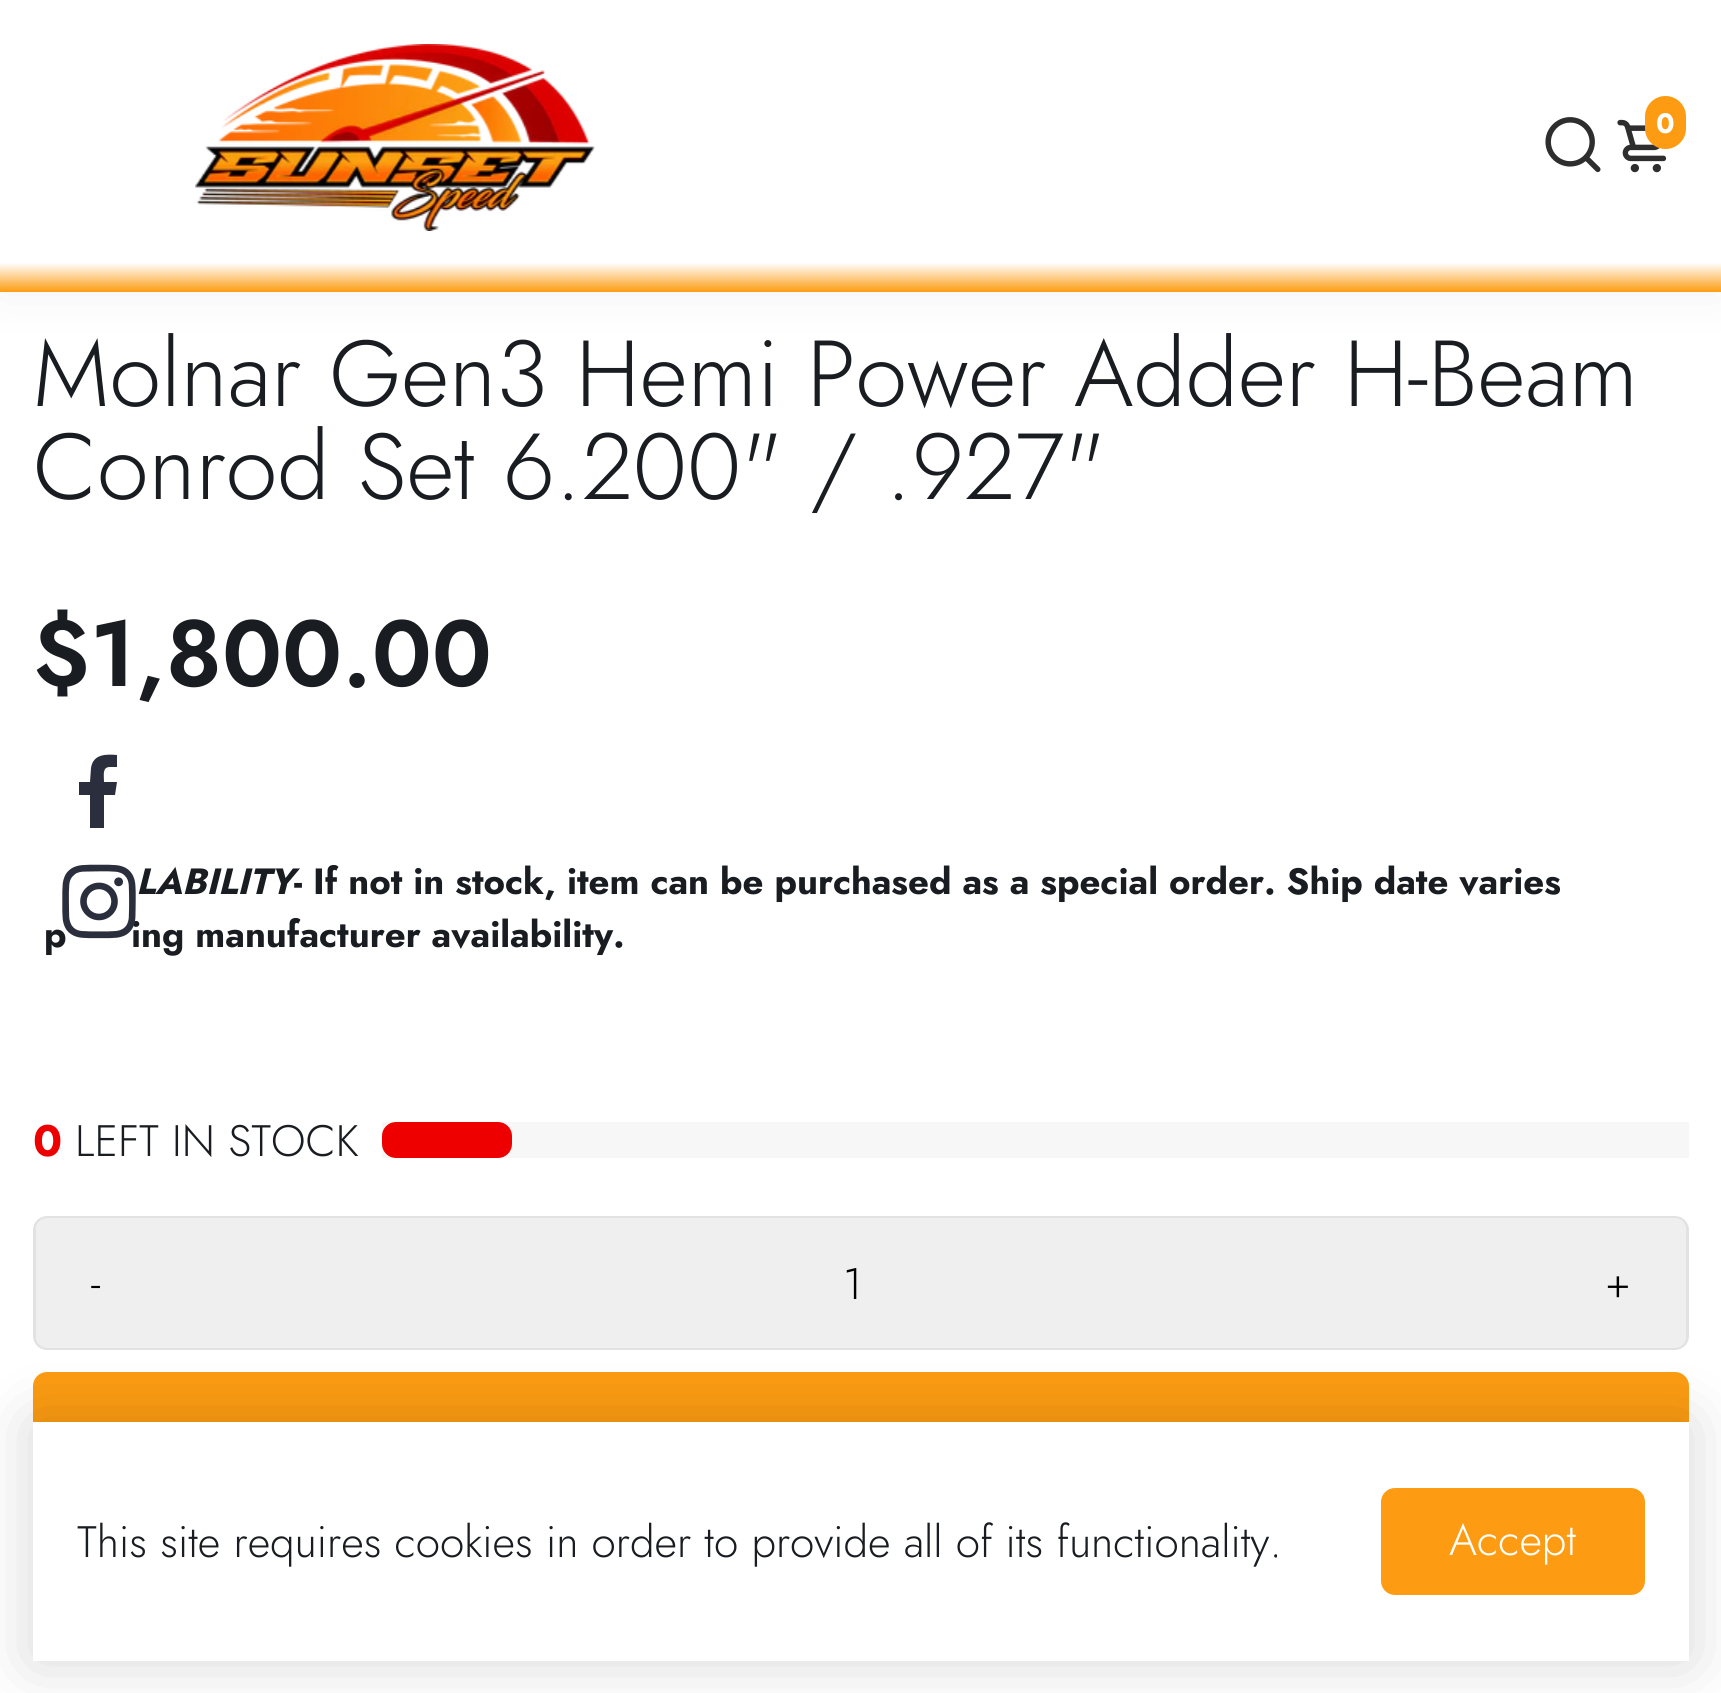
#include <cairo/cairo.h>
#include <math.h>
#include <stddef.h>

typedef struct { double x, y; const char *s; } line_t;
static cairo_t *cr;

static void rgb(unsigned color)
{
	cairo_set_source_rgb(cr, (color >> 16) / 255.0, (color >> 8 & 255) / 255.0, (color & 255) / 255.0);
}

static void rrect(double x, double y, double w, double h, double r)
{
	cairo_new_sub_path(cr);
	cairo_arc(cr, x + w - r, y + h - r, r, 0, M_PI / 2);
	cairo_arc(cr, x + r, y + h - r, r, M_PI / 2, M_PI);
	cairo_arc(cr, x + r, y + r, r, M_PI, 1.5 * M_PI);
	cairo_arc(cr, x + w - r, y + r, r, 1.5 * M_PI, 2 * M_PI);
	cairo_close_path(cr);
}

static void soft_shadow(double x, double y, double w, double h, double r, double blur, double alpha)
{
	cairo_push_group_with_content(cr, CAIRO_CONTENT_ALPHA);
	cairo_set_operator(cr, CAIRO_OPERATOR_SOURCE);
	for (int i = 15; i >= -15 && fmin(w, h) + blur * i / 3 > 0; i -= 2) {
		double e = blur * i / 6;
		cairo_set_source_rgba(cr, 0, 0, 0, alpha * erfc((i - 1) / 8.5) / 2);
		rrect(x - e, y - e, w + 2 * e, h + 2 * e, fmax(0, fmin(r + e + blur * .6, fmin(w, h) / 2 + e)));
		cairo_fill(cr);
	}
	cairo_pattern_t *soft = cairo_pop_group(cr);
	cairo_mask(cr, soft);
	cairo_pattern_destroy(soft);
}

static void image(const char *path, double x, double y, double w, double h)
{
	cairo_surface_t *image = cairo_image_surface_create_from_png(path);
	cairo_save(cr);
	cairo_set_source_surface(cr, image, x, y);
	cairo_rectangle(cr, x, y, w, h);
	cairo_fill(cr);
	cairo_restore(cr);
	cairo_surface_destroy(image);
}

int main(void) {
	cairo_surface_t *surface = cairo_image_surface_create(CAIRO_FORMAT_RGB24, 1721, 1693);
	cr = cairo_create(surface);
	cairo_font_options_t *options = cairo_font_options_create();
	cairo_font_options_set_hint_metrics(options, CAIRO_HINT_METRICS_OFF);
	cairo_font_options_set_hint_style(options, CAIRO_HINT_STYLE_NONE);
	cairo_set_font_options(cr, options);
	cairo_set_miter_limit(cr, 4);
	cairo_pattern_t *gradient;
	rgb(0xffffff);
	cairo_paint(cr);
	rgb(0x000000);
	soft_shadow(0, 0, 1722, 292, 0, 27.5, 0.06);
	gradient = cairo_pattern_create_linear(861, 0, 861, 292);
	cairo_pattern_add_color_stop_rgba(gradient, 0.9, 1, 1, 1, 1);
	cairo_pattern_add_color_stop_rgba(gradient, 1, 0.992, 0.612, 0.071, 1);
	cairo_set_source(cr, gradient);
	cairo_pattern_destroy(gradient);
	cairo_rectangle(cr, 0, 0, 1721, 292);
	cairo_fill(cr);
	image("img/1.png", 195, 44, 400, 187);
	image("img/2.png", 1545, 117, 56, 56);
	image("img/3.png", 1617, 119, 50, 54);
	rgb(0xfd9c12);
	rrect(1645, 96, 41, 53, 20.5);
	cairo_fill(cr);
	rgb(0xf7f7f7);
	cairo_rectangle(cr, 382, 1122, 1307, 36);
	cairo_fill(cr);
	rgb(0xef0000);
	rrect(382, 1122, 130, 36, 14);
	cairo_fill(cr);
	rrect(34.5, 1217.5, 1653, 131, 12.5);
	rgb(0xe2e2e2);
	cairo_set_line_width(cr, 3);
	cairo_stroke(cr);
	rgb(0xefefef);
	cairo_new_path(cr);
	cairo_move_to(cr, 47, 1218);
	cairo_line_to(cr, 154, 1218);
	cairo_line_to(cr, 154, 1348);
	cairo_line_to(cr, 47, 1348);
	cairo_curve_to(cr, 41, 1348, 36, 1343, 36, 1337);
	cairo_line_to(cr, 36, 1229);
	cairo_curve_to(cr, 36, 1223, 41, 1218, 47, 1218);
	cairo_close_path(cr);
	cairo_fill(cr);
	cairo_rectangle(cr, 154, 1218, 1397, 130);
	cairo_fill(cr);
	cairo_new_path(cr);
	cairo_move_to(cr, 1551, 1218);
	cairo_line_to(cr, 1675, 1218);
	cairo_curve_to(cr, 1681, 1218, 1686, 1223, 1686, 1229);
	cairo_line_to(cr, 1686, 1337);
	cairo_curve_to(cr, 1686, 1343, 1681, 1348, 1675, 1348);
	cairo_line_to(cr, 1551, 1348);
	cairo_close_path(cr);
	cairo_fill(cr);
	rgb(0xfd9c12);
	rrect(33, 1372, 1656, 124, 14);
	cairo_fill(cr);
	rgb(0x2b2f3d);
	cairo_new_path(cr);
	cairo_move_to(cr, 110, 767);
	cairo_line_to(cr, 117, 767);
	cairo_line_to(cr, 117, 755);
	cairo_curve_to(cr, 106, 754, 93, 754, 91, 768);
	cairo_line_to(cr, 90, 782);
	cairo_line_to(cr, 79, 782);
	cairo_line_to(cr, 79, 795);
	cairo_line_to(cr, 90, 795);
	cairo_line_to(cr, 90, 828);
	cairo_line_to(cr, 104, 828);
	cairo_line_to(cr, 104, 795);
	cairo_line_to(cr, 115, 795);
	cairo_line_to(cr, 117, 782);
	cairo_line_to(cr, 104, 782);
	cairo_curve_to(cr, 104, 775, 102, 767, 110, 767);
	cairo_close_path(cr);
	cairo_fill(cr);
	rgb(0x000000);
	soft_shadow(33, 1422, 1656, 239, 0, 33, 0.16);
	rgb(0xffffff);
	cairo_rectangle(cr, 33, 1422, 1656, 239);
	cairo_fill(cr);
	rgb(0xfd9c12);
	rrect(1381, 1488, 264, 107, 14);
	cairo_fill(cr);
	cairo_select_font_face(cr, "Jost", CAIRO_FONT_SLANT_NORMAL, CAIRO_FONT_WEIGHT_BOLD);
	cairo_set_font_size(cr, 28);
	rgb(0xffffff);
	cairo_move_to(cr, 1656, 133);
	cairo_show_text(cr, "0");
	cairo_select_font_face(cr, "Jost Light", CAIRO_FONT_SLANT_NORMAL, CAIRO_FONT_WEIGHT_NORMAL);
	cairo_set_font_size(cr, 93.5);
	rgb(0x191d21);
	cairo_move_to(cr, 33, 406);
	cairo_show_text(cr, "Molnar Gen3 Hemi Power Adder H-Beam");
	cairo_move_to(cr, 33, 499);
	cairo_show_text(cr, "Conrod Set 6.200\" / .927\"");
	cairo_select_font_face(cr, "Jost SemiBold", CAIRO_FONT_SLANT_NORMAL, CAIRO_FONT_WEIGHT_NORMAL);
	cairo_move_to(cr, 33, 686);
	cairo_show_text(cr, "$1,800.00");
	cairo_select_font_face(cr, "Jost", CAIRO_FONT_SLANT_ITALIC, CAIRO_FONT_WEIGHT_BOLD);
	cairo_set_font_size(cr, 36.5);
	cairo_move_to(cr, 136, 894);
	cairo_show_text(cr, "LABILITY");
	cairo_select_font_face(cr, "Jost", CAIRO_FONT_SLANT_NORMAL, CAIRO_FONT_WEIGHT_BOLD);
	{
		static const line_t items[] = {
			{294, 894, "- If not in stock, item can be purchased as a special order. Ship date varies"},
			{44, 947, "p"},
			{131, 947, "ing manufacturer availability."},
		};
		for (size_t i = 0; i < sizeof items / sizeof *items; i++) {
			cairo_move_to(cr, items[i].x, items[i].y);
			cairo_show_text(cr, items[i].s);
		}
	}
	cairo_set_font_size(cr, 44);
	rgb(0xef0000);
	cairo_move_to(cr, 33, 1156);
	cairo_show_text(cr, "0");
	cairo_select_font_face(cr, "Jost Light", CAIRO_FONT_SLANT_NORMAL, CAIRO_FONT_WEIGHT_NORMAL);
	rgb(0x191d21);
	cairo_move_to(cr, 75, 1156);
	cairo_show_text(cr, "LEFT IN STOCK");
	rgb(0x000000);
	{
		static const line_t items[] = {
			{91, 1298, "-"},
			{843, 1299, "1"},
			{1605, 1298, "+"},
		};
		for (size_t i = 0; i < sizeof items / sizeof *items; i++) {
			cairo_move_to(cr, items[i].x, items[i].y);
			cairo_show_text(cr, items[i].s);
		}
	}
	image("img/4.png", 62, 864, 74, 75);
	rgb(0x191d21);
	cairo_move_to(cr, 77, 1557);
	cairo_show_text(cr, "This site requires cookies in order to provide all of its functionality.");
	rgb(0xffffff);
	cairo_move_to(cr, 1449, 1555);
	cairo_show_text(cr, "Accept");
	cairo_surface_write_to_png(surface, "page.png");
	cairo_font_options_destroy(options);
	cairo_destroy(cr);
	cairo_surface_destroy(surface);
	return 0;
}
